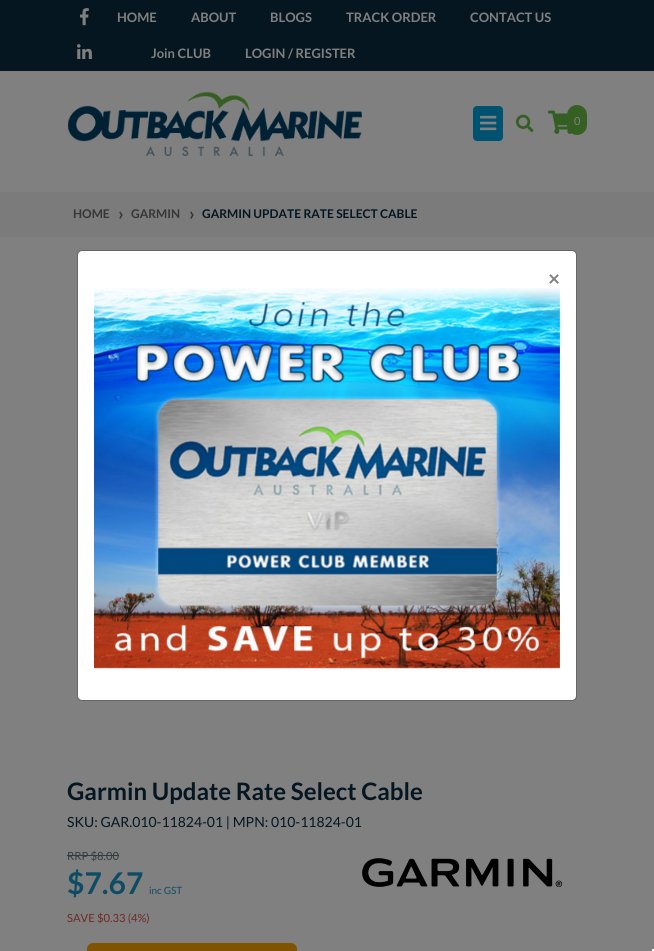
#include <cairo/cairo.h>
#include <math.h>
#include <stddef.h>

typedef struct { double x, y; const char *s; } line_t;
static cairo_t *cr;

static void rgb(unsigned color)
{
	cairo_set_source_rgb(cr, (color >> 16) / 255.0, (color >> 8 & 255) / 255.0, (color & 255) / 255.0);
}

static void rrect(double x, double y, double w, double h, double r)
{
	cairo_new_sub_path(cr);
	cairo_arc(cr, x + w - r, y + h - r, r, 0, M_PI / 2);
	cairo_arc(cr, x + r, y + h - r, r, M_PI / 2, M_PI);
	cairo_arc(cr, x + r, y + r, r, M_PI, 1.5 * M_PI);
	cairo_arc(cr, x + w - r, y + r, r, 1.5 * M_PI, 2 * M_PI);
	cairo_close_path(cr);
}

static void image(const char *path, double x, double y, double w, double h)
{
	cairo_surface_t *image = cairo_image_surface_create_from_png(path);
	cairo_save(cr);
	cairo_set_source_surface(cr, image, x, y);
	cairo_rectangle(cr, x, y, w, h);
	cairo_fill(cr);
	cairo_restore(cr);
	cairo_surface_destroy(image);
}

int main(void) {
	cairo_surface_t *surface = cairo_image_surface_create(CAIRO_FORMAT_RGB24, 654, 951);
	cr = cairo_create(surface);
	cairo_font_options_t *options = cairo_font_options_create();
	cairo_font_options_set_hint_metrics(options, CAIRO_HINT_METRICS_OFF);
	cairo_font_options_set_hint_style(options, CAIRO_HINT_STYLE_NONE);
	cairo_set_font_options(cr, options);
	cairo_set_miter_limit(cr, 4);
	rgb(0x808080);
	cairo_paint(cr);
	rgb(0x051621);
	cairo_rectangle(cr, 0, 0, 654, 71);
	cairo_fill(cr);
	image("img/1.png", 80, 8, 9, 18);
	image("img/2.png", 77, 44, 15, 15);
	image("img/3.png", 67, 91, 295, 65);
	rgb(0x005271);
	rrect(473.5, 106.5, 29, 34, 3.5);
	cairo_fill_preserve(cr);
	cairo_set_line_width(cr, 1);
	cairo_stroke(cr);
	image("img/4.png", 480, 115, 17, 16);
	image("img/5.png", 516, 114, 18, 19);
	image("img/6.png", 548, 110, 24, 24);
	rgb(0x355f23);
	rrect(567, 105, 20, 30, 10);
	cairo_fill(cr);
	rgb(0x7b7b7b);
	cairo_rectangle(cr, 0, 192, 654, 45);
	cairo_fill(cr);
	rgb(0xffffff);
	rrect(78, 251, 498, 449, 4);
	cairo_fill(cr);
	image("img/8.png", 77, 381, 1, 258);
	rrect(77.5, 250.5, 499, 450, 4.5);
	cairo_set_source_rgba(cr, 0, 0, 0, 0.2);
	cairo_stroke(cr);
	image("img/7.png", 94, 288, 466, 381);
	rgb(0x363b3f);
	cairo_rectangle(cr, 67, 855, 52, 1);
	cairo_fill(cr);
	rgb(0x805300);
	rrect(87, 943, 210, 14, 6);
	cairo_fill(cr);
	image("img/9.png", 362, 858, 200, 29);
	rgb(0xf5f5f5);
	cairo_rectangle(cr, 652, 949, 2, 2);
	cairo_fill(cr);
	cairo_select_font_face(cr, "Lato", CAIRO_FONT_SLANT_NORMAL, CAIRO_FONT_WEIGHT_BOLD);
	cairo_set_font_size(cr, 13);
	rgb(0x808080);
	{
		static const line_t items[] = {
			{117, 22, "HOME"},
			{191, 22, "ABOUT"},
			{270, 22, "BLOGS"},
			{346, 22, "TRACK ORDER"},
			{470, 22, "CONTACT US"},
			{151, 58, "Join CLUB"},
			{245, 58, "LOGIN / REGISTER"},
		};
		for (size_t i = 0; i < sizeof items / sizeof *items; i++) {
			cairo_move_to(cr, items[i].x, items[i].y);
			cairo_show_text(cr, items[i].s);
		}
	}
	cairo_select_font_face(cr, "Lato", CAIRO_FONT_SLANT_NORMAL, CAIRO_FONT_WEIGHT_NORMAL);
	cairo_set_font_size(cr, 11);
	cairo_move_to(cr, 574, 125);
	cairo_show_text(cr, "0");
	cairo_select_font_face(cr, "Lato", CAIRO_FONT_SLANT_NORMAL, CAIRO_FONT_WEIGHT_BOLD);
	cairo_set_font_size(cr, 12);
	rgb(0x363636);
	cairo_move_to(cr, 73, 218);
	cairo_show_text(cr, "HOME");
	cairo_set_font_size(cr, 18);
	cairo_move_to(cr, 118, 220);
	cairo_show_text(cr, "›");
	cairo_set_font_size(cr, 12);
	cairo_move_to(cr, 131, 218);
	cairo_show_text(cr, "GARMIN");
	cairo_set_font_size(cr, 18);
	cairo_move_to(cr, 189, 220);
	cairo_show_text(cr, "›");
	cairo_set_font_size(cr, 12);
	rgb(0x051621);
	cairo_move_to(cr, 202, 218);
	cairo_show_text(cr, "GARMIN UPDATE RATE SELECT CABLE");
	cairo_set_font_size(cr, 21);
	rgb(0x808080);
	cairo_move_to(cr, 548, 286);
	cairo_show_text(cr, "×");
	cairo_set_font_size(cr, 24);
	rgb(0x051621);
	cairo_move_to(cr, 67, 800);
	cairo_show_text(cr, "Garmin Update Rate Select Cable");
	cairo_select_font_face(cr, "Lato", CAIRO_FONT_SLANT_NORMAL, CAIRO_FONT_WEIGHT_NORMAL);
	cairo_set_font_size(cr, 14);
	cairo_move_to(cr, 67, 827);
	cairo_show_text(cr, "SKU: GAR.010-11824-01 | MPN: 010-11824-01");
	cairo_set_font_size(cr, 11.25);
	rgb(0x363b3f);
	cairo_move_to(cr, 67, 860);
	cairo_show_text(cr, "RRP $8.00");
	cairo_select_font_face(cr, "Lato", CAIRO_FONT_SLANT_NORMAL, CAIRO_FONT_WEIGHT_BOLD);
	cairo_set_font_size(cr, 30);
	rgb(0x0e4c63);
	cairo_move_to(cr, 67, 894);
	cairo_show_text(cr, "$7.67");
	cairo_select_font_face(cr, "Lato", CAIRO_FONT_SLANT_NORMAL, CAIRO_FONT_WEIGHT_NORMAL);
	cairo_set_font_size(cr, 10);
	cairo_move_to(cr, 149, 894);
	cairo_show_text(cr, "inc GST");
	cairo_set_font_size(cr, 11.25);
	rgb(0x6d2a28);
	cairo_move_to(cr, 67, 922);
	cairo_show_text(cr, "SAVE $0.33 (4%)");
	cairo_surface_write_to_png(surface, "page.png");
	cairo_font_options_destroy(options);
	cairo_destroy(cr);
	cairo_surface_destroy(surface);
	return 0;
}
